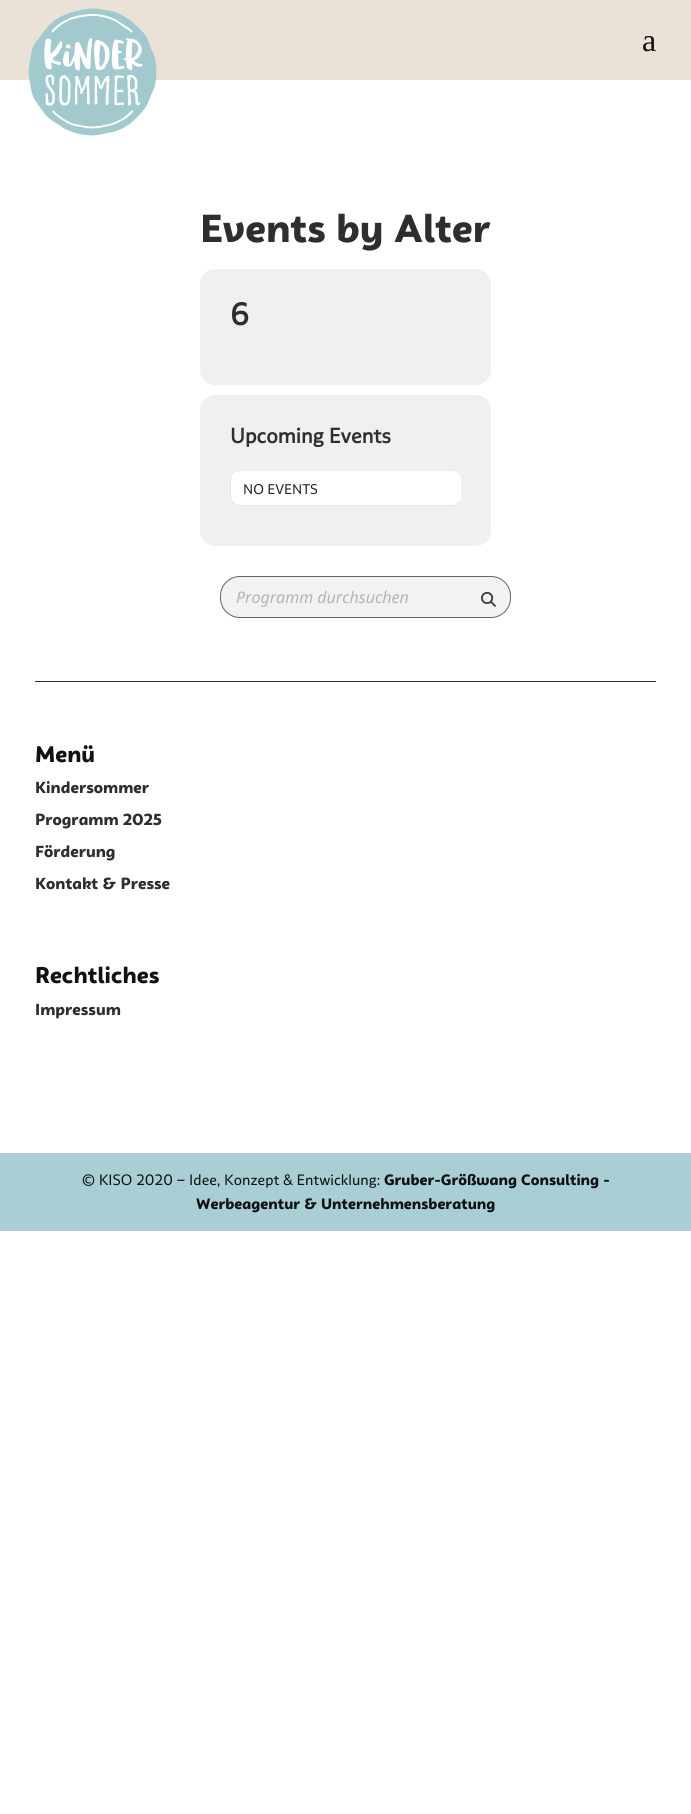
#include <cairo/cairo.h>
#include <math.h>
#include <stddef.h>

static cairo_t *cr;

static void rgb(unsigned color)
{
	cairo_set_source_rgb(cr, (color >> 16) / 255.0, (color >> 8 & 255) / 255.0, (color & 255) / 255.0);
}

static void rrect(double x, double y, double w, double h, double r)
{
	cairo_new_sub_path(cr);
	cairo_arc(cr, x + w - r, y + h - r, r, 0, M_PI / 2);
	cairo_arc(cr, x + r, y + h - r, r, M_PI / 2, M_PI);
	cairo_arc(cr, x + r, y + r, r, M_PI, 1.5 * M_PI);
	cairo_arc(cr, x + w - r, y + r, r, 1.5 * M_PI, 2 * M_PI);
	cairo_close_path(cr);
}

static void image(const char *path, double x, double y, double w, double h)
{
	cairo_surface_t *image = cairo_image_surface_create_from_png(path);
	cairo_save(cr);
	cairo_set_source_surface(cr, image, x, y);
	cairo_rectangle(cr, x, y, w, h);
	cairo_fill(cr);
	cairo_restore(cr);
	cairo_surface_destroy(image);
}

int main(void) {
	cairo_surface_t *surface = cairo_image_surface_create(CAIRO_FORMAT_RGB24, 691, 1814);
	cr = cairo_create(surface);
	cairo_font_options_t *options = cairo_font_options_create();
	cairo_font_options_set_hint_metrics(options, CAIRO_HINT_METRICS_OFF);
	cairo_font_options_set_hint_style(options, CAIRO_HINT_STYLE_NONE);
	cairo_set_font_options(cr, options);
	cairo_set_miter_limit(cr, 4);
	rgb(0xffffff);
	cairo_paint(cr);
	rgb(0xeae2d7);
	cairo_rectangle(cr, 0, 0, 691, 80);
	cairo_fill(cr);
	image("img/1.png", 28, 8, 129, 128);
	rgb(0xf0f0f0);
	rrect(200, 269, 291, 116, 15);
	cairo_fill(cr);
	rrect(200, 395, 291, 151, 15);
	cairo_fill(cr);
	rgb(0xe5e5e5);
	cairo_set_fill_rule(cr, CAIRO_FILL_RULE_EVEN_ODD);
	cairo_new_path(cr);
	cairo_move_to(cr, 240, 471);
	cairo_line_to(cr, 451, 471);
	cairo_curve_to(cr, 457, 471, 461, 475, 461, 481);
	cairo_line_to(cr, 461, 496);
	cairo_curve_to(cr, 461, 502, 457, 506, 451, 506);
	cairo_line_to(cr, 240, 506);
	cairo_curve_to(cr, 234, 506, 230, 502, 230, 496);
	cairo_line_to(cr, 230, 481);
	cairo_curve_to(cr, 230, 475, 234, 471, 240, 471);
	cairo_close_path(cr);
	cairo_move_to(cr, 240, 471);
	cairo_line_to(cr, 451, 471);
	cairo_curve_to(cr, 457, 471, 461, 475, 461, 481);
	cairo_line_to(cr, 461, 496);
	cairo_curve_to(cr, 461, 501, 457, 505, 451, 505);
	cairo_line_to(cr, 240, 505);
	cairo_curve_to(cr, 235, 505, 231, 501, 231, 496);
	cairo_line_to(cr, 231, 481);
	cairo_curve_to(cr, 231, 475, 235, 471, 240, 471);
	cairo_close_path(cr);
	cairo_fill(cr);
	rgb(0xffffff);
	cairo_set_fill_rule(cr, CAIRO_FILL_RULE_WINDING);
	cairo_new_path(cr);
	cairo_move_to(cr, 240, 471);
	cairo_curve_to(cr, 235, 471, 231, 475, 231, 481);
	cairo_line_to(cr, 231, 496);
	cairo_curve_to(cr, 231, 501, 235, 505, 240, 505);
	cairo_line_to(cr, 451, 505);
	cairo_curve_to(cr, 457, 505, 461, 501, 461, 496);
	cairo_line_to(cr, 461, 481);
	cairo_curve_to(cr, 461, 475, 457, 471, 451, 471);
	cairo_close_path(cr);
	cairo_fill(cr);
	rgb(0xf2f2f2);
	rrect(220.5, 576.5, 290, 41, 19.5);
	cairo_fill_preserve(cr);
	rgb(0x656565);
	cairo_set_line_width(cr, 1);
	cairo_stroke(cr);
	image("img/2.png", 481, 591, 15, 16);
	rgb(0x2e2e2e);
	cairo_rectangle(cr, 35, 681, 621, 1);
	cairo_fill(cr);
	rgb(0xa9cfd5);
	cairo_rectangle(cr, 0, 1153, 691, 78);
	cairo_fill(cr);
	cairo_select_font_face(cr, "Liberation Serif", CAIRO_FONT_SLANT_NORMAL, CAIRO_FONT_WEIGHT_NORMAL);
	cairo_set_font_size(cr, 32);
	rgb(0x111111);
	cairo_move_to(cr, 642, 51);
	cairo_show_text(cr, "a");
	cairo_select_font_face(cr, "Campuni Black", CAIRO_FONT_SLANT_NORMAL, CAIRO_FONT_WEIGHT_NORMAL);
	cairo_set_font_size(cr, 39);
	rgb(0x2e2e2e);
	cairo_move_to(cr, 200, 242);
	cairo_show_text(cr, "Events by Alter");
	cairo_select_font_face(cr, "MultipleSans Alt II", CAIRO_FONT_SLANT_NORMAL, CAIRO_FONT_WEIGHT_BOLD);
	cairo_set_font_size(cr, 31);
	cairo_move_to(cr, 230, 325);
	cairo_show_text(cr, "6");
	cairo_set_font_size(cr, 21);
	cairo_move_to(cr, 230, 443);
	cairo_show_text(cr, "Upcoming Events");
	cairo_select_font_face(cr, "MultipleSans Alt II", CAIRO_FONT_SLANT_NORMAL, CAIRO_FONT_WEIGHT_NORMAL);
	cairo_set_font_size(cr, 14);
	rgb(0x202124);
	cairo_move_to(cr, 243, 494);
	cairo_show_text(cr, "NO EVENTS");
	cairo_select_font_face(cr, "Noto Sans", CAIRO_FONT_SLANT_ITALIC, CAIRO_FONT_WEIGHT_NORMAL);
	cairo_set_font_size(cr, 16);
	rgb(0xb5b4b4);
	cairo_move_to(cr, 236, 603);
	cairo_show_text(cr, "Programm durchsuchen");
	cairo_select_font_face(cr, "Campuni Black", CAIRO_FONT_SLANT_NORMAL, CAIRO_FONT_WEIGHT_NORMAL);
	cairo_set_font_size(cr, 22.5);
	rgb(0x111111);
	cairo_move_to(cr, 35, 762);
	cairo_show_text(cr, "Menü");
	cairo_set_font_size(cr, 16);
	rgb(0x2e2e2e);
	cairo_move_to(cr, 35, 793);
	cairo_show_text(cr, "Kindersommer");
	cairo_select_font_face(cr, "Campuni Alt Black", CAIRO_FONT_SLANT_NORMAL, CAIRO_FONT_WEIGHT_NORMAL);
	cairo_move_to(cr, 35, 825);
	cairo_show_text(cr, "Programm 2025");
	cairo_select_font_face(cr, "Campuni Black", CAIRO_FONT_SLANT_NORMAL, CAIRO_FONT_WEIGHT_NORMAL);
	cairo_move_to(cr, 35, 857);
	cairo_show_text(cr, "Förderung");
	cairo_move_to(cr, 35, 889);
	cairo_show_text(cr, "Kontakt & Presse");
	cairo_set_font_size(cr, 22.5);
	rgb(0x111111);
	cairo_move_to(cr, 35, 983);
	cairo_show_text(cr, "Rechtliches");
	cairo_set_font_size(cr, 16);
	rgb(0x2e2e2e);
	cairo_move_to(cr, 35, 1015);
	cairo_show_text(cr, "Impressum");
	cairo_select_font_face(cr, "MultipleSans Alt II", CAIRO_FONT_SLANT_NORMAL, CAIRO_FONT_WEIGHT_NORMAL);
	cairo_set_font_size(cr, 15);
	rgb(0x111111);
	cairo_move_to(cr, 82, 1185);
	cairo_show_text(cr, "© KISO 2020 – Idee, Konzept & Entwicklung:");
	cairo_select_font_face(cr, "Campuni Black", CAIRO_FONT_SLANT_NORMAL, CAIRO_FONT_WEIGHT_NORMAL);
	cairo_move_to(cr, 384, 1185);
	cairo_show_text(cr, "Gruber-Größwang Consulting -");
	cairo_move_to(cr, 196, 1209);
	cairo_show_text(cr, "Werbeagentur & Unternehmensberatung");
	cairo_surface_write_to_png(surface, "page.png");
	cairo_font_options_destroy(options);
	cairo_destroy(cr);
	cairo_surface_destroy(surface);
	return 0;
}
